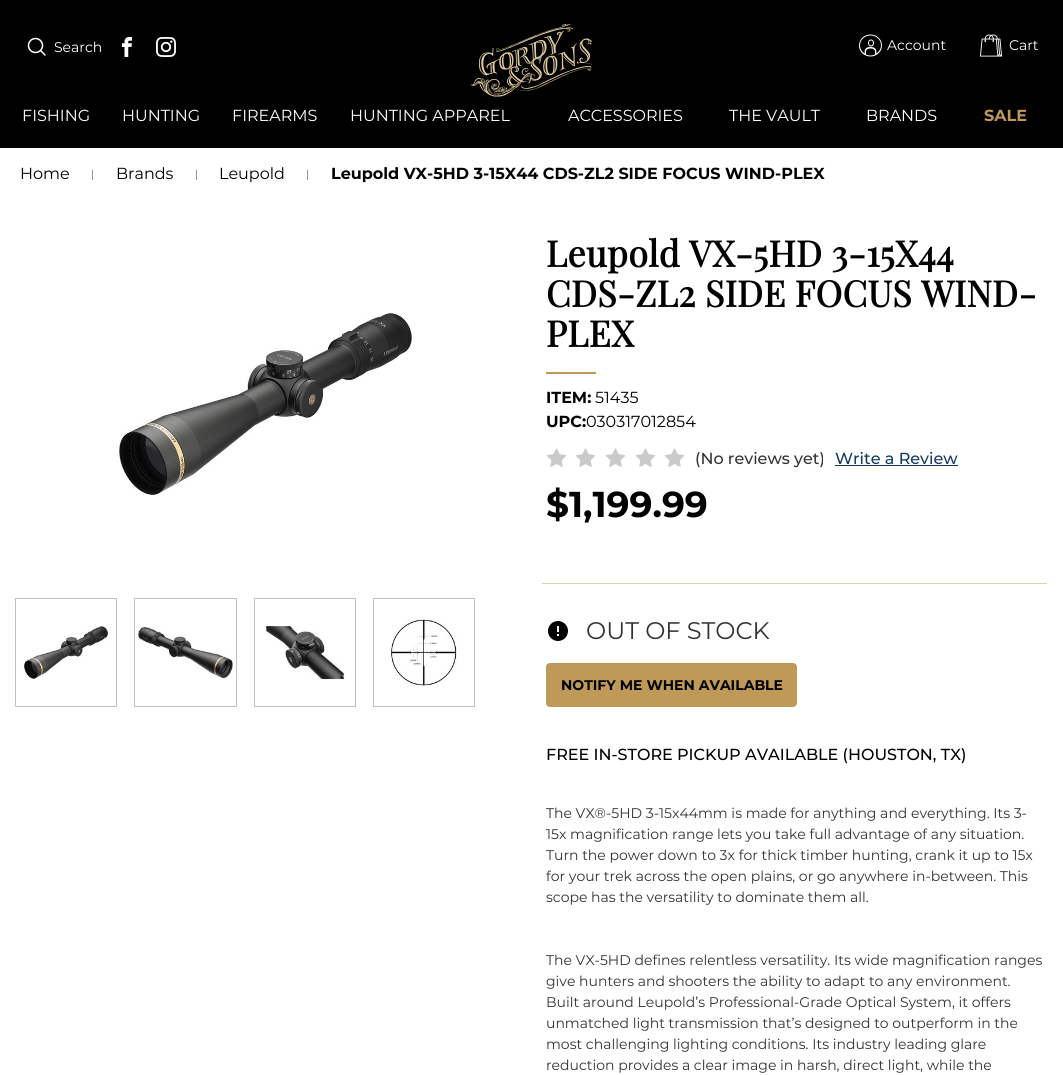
#include <cairo/cairo.h>
#include <math.h>
#include <stddef.h>

typedef struct { double x, y; const char *s; } line_t;
typedef struct { double x, y, w, h; unsigned color; } box_t;
static cairo_t *cr;

static void rgb(unsigned color)
{
	cairo_set_source_rgb(cr, (color >> 16) / 255.0, (color >> 8 & 255) / 255.0, (color & 255) / 255.0);
}

static void tracked(double x, double y, const char *s, double letter, double word)
{
	cairo_move_to(cr, x, y);
	while (*s) {
		char ch[5] = {0};
		int n = 0;
		do ch[n++] = *s++; while ((*s & 0xC0) == 0x80);
		cairo_show_text(cr, ch);
		cairo_rel_move_to(cr, letter + word * (*ch == ' '), 0);
	}
}

static void rrect(double x, double y, double w, double h, double r)
{
	cairo_new_sub_path(cr);
	cairo_arc(cr, x + w - r, y + h - r, r, 0, M_PI / 2);
	cairo_arc(cr, x + r, y + h - r, r, M_PI / 2, M_PI);
	cairo_arc(cr, x + r, y + r, r, M_PI, 1.5 * M_PI);
	cairo_arc(cr, x + w - r, y + r, r, 1.5 * M_PI, 2 * M_PI);
	cairo_close_path(cr);
}

static void image(const char *path, double x, double y, double w, double h)
{
	cairo_surface_t *image = cairo_image_surface_create_from_png(path);
	cairo_save(cr);
	cairo_set_source_surface(cr, image, x, y);
	cairo_rectangle(cr, x, y, w, h);
	cairo_fill(cr);
	cairo_restore(cr);
	cairo_surface_destroy(image);
}

int main(void) {
	cairo_surface_t *surface = cairo_image_surface_create(CAIRO_FORMAT_RGB24, 1063, 1075);
	cr = cairo_create(surface);
	cairo_font_options_t *options = cairo_font_options_create();
	cairo_font_options_set_hint_metrics(options, CAIRO_HINT_METRICS_OFF);
	cairo_font_options_set_hint_style(options, CAIRO_HINT_STYLE_NONE);
	cairo_set_font_options(cr, options);
	cairo_set_miter_limit(cr, 4);
	rgb(0xffffff);
	cairo_paint(cr);
	rgb(0x000000);
	cairo_rectangle(cr, 0, 0, 1063, 148);
	cairo_fill(cr);
	image("img/1.png", 471, 24, 121, 73);
	cairo_arc(cr, 35.5, 45.5, 7, 0, 2 * M_PI);
	rgb(0xffffff);
	cairo_set_line_width(cr, 1.5);
	cairo_stroke(cr);
	cairo_new_path(cr);
	cairo_move_to(cr, 45, 55);
	cairo_line_to(cr, 40.5, 50.5);
	cairo_set_line_cap(cr, CAIRO_LINE_CAP_ROUND);
	cairo_set_line_join(cr, CAIRO_LINE_JOIN_ROUND);
	cairo_stroke(cr);
	image("img/2.png", 122, 37, 10, 20);
	image("img/3.png", 156, 37, 20, 20);
	image("img/4.png", 859, 34, 23, 23);
	image("img/5.png", 980, 34, 22, 23);
	{
		static const box_t items[] = {
			{92, 170, 1, 10, 0x979797},
			{196, 170, 1, 10, 0x979797},
			{307, 170, 1, 10, 0x979797},
		};
		for (size_t i = 0; i < sizeof items / sizeof *items; i++) {
			rgb(items[i].color);
			cairo_rectangle(cr, items[i].x, items[i].y, items[i].w, items[i].h);
			cairo_fill(cr);
		}
	}
	image("img/6.png", 119, 313, 293, 182);
	cairo_rectangle(cr, 15.5, 598.5, 101, 108);
	rgb(0xc1c1c1);
	cairo_set_line_width(cr, 1);
	cairo_set_line_cap(cr, CAIRO_LINE_CAP_BUTT);
	cairo_set_line_join(cr, CAIRO_LINE_JOIN_MITER);
	cairo_stroke(cr);
	image("img/7.png", 23, 625, 86, 55);
	cairo_rectangle(cr, 134.5, 598.5, 102, 108);
	cairo_stroke(cr);
	image("img/8.png", 138, 625, 95, 55);
	cairo_rectangle(cr, 254.5, 598.5, 101, 108);
	cairo_stroke(cr);
	image("img/9.png", 263, 625, 82, 55);
	cairo_rectangle(cr, 373.5, 598.5, 101, 108);
	cairo_stroke(cr);
	image("img/10.png", 391, 619, 66, 67);
	rgb(0xbf9958);
	cairo_rectangle(cr, 546, 372, 50, 2);
	cairo_fill(cr);
	image("img/11.png", 546, 448, 21, 19);
	image("img/11.png", 575, 448, 21, 19);
	image("img/11.png", 605, 448, 21, 19);
	image("img/11.png", 635, 448, 21, 19);
	image("img/11.png", 664, 448, 21, 19);
	rgb(0x143a64);
	cairo_rectangle(cr, 835, 465, 123, 1);
	cairo_fill(cr);
	rgb(0xe0cdac);
	cairo_rectangle(cr, 542, 583, 505, 1);
	cairo_fill(cr);
	image("img/12.png", 548, 621, 20, 20);
	rgb(0xbf9958);
	rrect(546, 663, 251, 44, 4);
	cairo_fill(cr);
	cairo_select_font_face(cr, "Montserrat Thin", CAIRO_FONT_SLANT_NORMAL, CAIRO_FONT_WEIGHT_NORMAL);
	cairo_set_font_size(cr, 14);
	rgb(0xffffff);
	{
		static const line_t items[] = {
			{54, 52, "Search"},
			{887, 50, "Account"},
			{1009, 50, "Cart"},
		};
		for (size_t i = 0; i < sizeof items / sizeof *items; i++) {
			cairo_move_to(cr, items[i].x, items[i].y);
			cairo_show_text(cr, items[i].s);
		}
	}
	cairo_set_font_size(cr, 16);
	{
		static const line_t items[] = {
			{22, 121, "FISHING"},
			{122, 121, "HUNTING"},
			{232, 121, "FIREARMS"},
			{350, 121, "HUNTING APPAREL"},
			{568, 121, "ACCESSORIES"},
			{729, 121, "THE VAULT"},
			{866, 121, "BRANDS"},
		};
		for (size_t i = 0; i < sizeof items / sizeof *items; i++) {
			cairo_move_to(cr, items[i].x, items[i].y);
			cairo_show_text(cr, items[i].s);
		}
	}
	cairo_select_font_face(cr, "Montserrat", CAIRO_FONT_SLANT_NORMAL, CAIRO_FONT_WEIGHT_BOLD);
	rgb(0xbf9958);
	cairo_move_to(cr, 984, 121);
	cairo_show_text(cr, "SALE");
	cairo_select_font_face(cr, "Montserrat Thin", CAIRO_FONT_SLANT_NORMAL, CAIRO_FONT_WEIGHT_NORMAL);
	rgb(0x000000);
	{
		static const line_t items[] = {
			{20, 179, "Home"},
			{116, 179, "Brands"},
			{219, 179, "Leupold"},
		};
		for (size_t i = 0; i < sizeof items / sizeof *items; i++) {
			cairo_move_to(cr, items[i].x, items[i].y);
			cairo_show_text(cr, items[i].s);
		}
	}
	cairo_select_font_face(cr, "Montserrat", CAIRO_FONT_SLANT_NORMAL, CAIRO_FONT_WEIGHT_BOLD);
	cairo_move_to(cr, 331, 179);
	cairo_show_text(cr, "Leupold VX-5HD 3-15X44 CDS-ZL2 SIDE FOCUS WIND-PLEX");
	cairo_select_font_face(cr, "Playfair Display", CAIRO_FONT_SLANT_NORMAL, CAIRO_FONT_WEIGHT_BOLD);
	cairo_set_font_size(cr, 36);
	{
		static const line_t items[] = {
			{546, 267, "Leupold VX-5HD 3-15X44"},
			{546, 307, "CDS-ZL2 SIDE FOCUS WIND-"},
			{546, 347, "PLEX"},
		};
		for (size_t i = 0; i < sizeof items / sizeof *items; i++) {
			tracked(items[i].x, items[i].y, items[i].s, 0.25, 0);
		}
	}
	cairo_select_font_face(cr, "Montserrat", CAIRO_FONT_SLANT_NORMAL, CAIRO_FONT_WEIGHT_BOLD);
	cairo_set_font_size(cr, 16);
	cairo_move_to(cr, 546, 403);
	cairo_show_text(cr, "ITEM:");
	cairo_select_font_face(cr, "Montserrat Thin", CAIRO_FONT_SLANT_NORMAL, CAIRO_FONT_WEIGHT_NORMAL);
	cairo_move_to(cr, 595, 403);
	cairo_show_text(cr, "51435");
	cairo_select_font_face(cr, "Montserrat", CAIRO_FONT_SLANT_NORMAL, CAIRO_FONT_WEIGHT_BOLD);
	cairo_move_to(cr, 546, 427);
	cairo_show_text(cr, "UPC:");
	cairo_select_font_face(cr, "Montserrat Thin", CAIRO_FONT_SLANT_NORMAL, CAIRO_FONT_WEIGHT_NORMAL);
	cairo_move_to(cr, 586, 427);
	cairo_show_text(cr, "030317012854");
	cairo_select_font_face(cr, "Montserrat Medium", CAIRO_FONT_SLANT_NORMAL, CAIRO_FONT_WEIGHT_NORMAL);
	rgb(0x333333);
	cairo_move_to(cr, 695, 464);
	cairo_show_text(cr, "(No reviews yet)");
	rgb(0x143a64);
	cairo_move_to(cr, 835, 464);
	cairo_show_text(cr, "Write a Review");
	cairo_select_font_face(cr, "Montserrat", CAIRO_FONT_SLANT_NORMAL, CAIRO_FONT_WEIGHT_BOLD);
	cairo_set_font_size(cr, 36);
	rgb(0x000000);
	cairo_move_to(cr, 546, 517);
	cairo_show_text(cr, "$1,199.99");
	cairo_select_font_face(cr, "Montserrat Thin", CAIRO_FONT_SLANT_NORMAL, CAIRO_FONT_WEIGHT_NORMAL);
	cairo_set_font_size(cr, 24);
	rgb(0x333333);
	cairo_move_to(cr, 586, 639);
	cairo_show_text(cr, "OUT OF STOCK");
	cairo_select_font_face(cr, "Montserrat", CAIRO_FONT_SLANT_NORMAL, CAIRO_FONT_WEIGHT_BOLD);
	cairo_set_font_size(cr, 14);
	rgb(0x000000);
	cairo_move_to(cr, 561, 690);
	cairo_show_text(cr, "NOTIFY ME WHEN AVAILABLE");
	cairo_select_font_face(cr, "Montserrat Medium", CAIRO_FONT_SLANT_NORMAL, CAIRO_FONT_WEIGHT_NORMAL);
	cairo_set_font_size(cr, 16);
	cairo_move_to(cr, 546, 760);
	cairo_show_text(cr, "FREE IN-STORE PICKUP AVAILABLE (HOUSTON, TX)");
	cairo_select_font_face(cr, "Montserrat Thin", CAIRO_FONT_SLANT_NORMAL, CAIRO_FONT_WEIGHT_NORMAL);
	cairo_set_font_size(cr, 14);
	rgb(0x333333);
	{
		static const line_t items[] = {
			{546, 818, "The VX®-5HD 3-15x44mm is made for anything and everything. Its 3-"},
			{546, 839, "15x magnification range lets you take full advantage of any situation."},
			{546, 860, "Turn the power down to 3x for thick timber hunting, crank it up to 15x"},
			{546, 881, "for your trek across the open plains, or go anywhere in-between. This"},
			{546, 902, "scope has the versatility to dominate them all."},
			{546, 965, "The VX-5HD defines relentless versatility. Its wide magnification ranges"},
			{546, 986, "give hunters and shooters the ability to adapt to any environment."},
			{546, 1007, "Built around Leupold’s Professional-Grade Optical System, it offers"},
			{546, 1028, "unmatched light transmission that’s designed to outperform in the"},
			{546, 1049, "most challenging lighting conditions. Its industry leading glare"},
			{546, 1070, "reduction provides a clear image in harsh, direct light, while the"},
		};
		for (size_t i = 0; i < sizeof items / sizeof *items; i++) {
			cairo_move_to(cr, items[i].x, items[i].y);
			cairo_show_text(cr, items[i].s);
		}
	}
	cairo_surface_write_to_png(surface, "page.png");
	cairo_font_options_destroy(options);
	cairo_destroy(cr);
	cairo_surface_destroy(surface);
	return 0;
}
